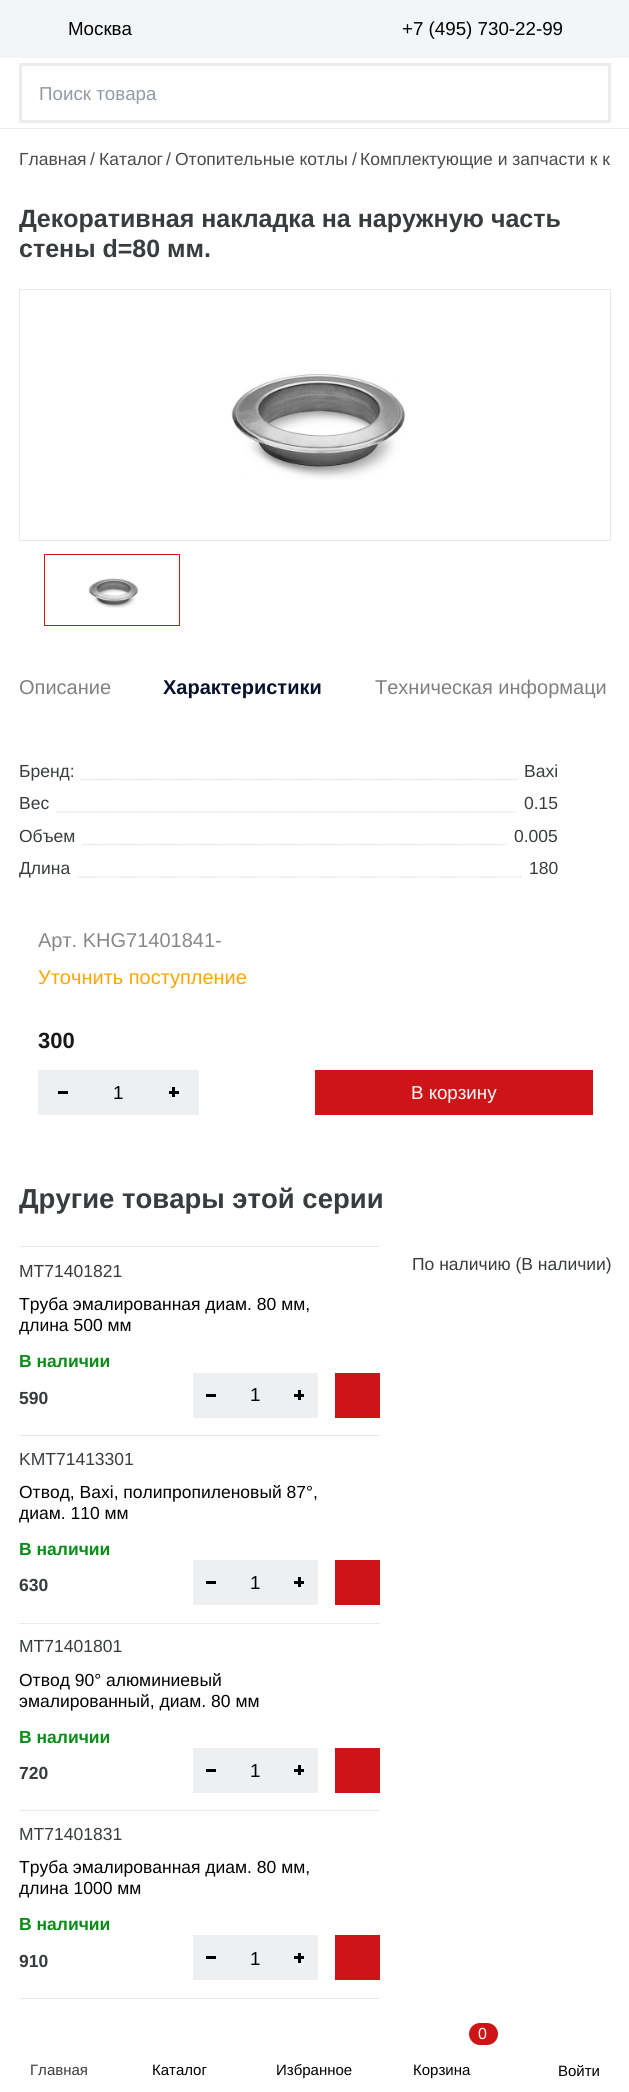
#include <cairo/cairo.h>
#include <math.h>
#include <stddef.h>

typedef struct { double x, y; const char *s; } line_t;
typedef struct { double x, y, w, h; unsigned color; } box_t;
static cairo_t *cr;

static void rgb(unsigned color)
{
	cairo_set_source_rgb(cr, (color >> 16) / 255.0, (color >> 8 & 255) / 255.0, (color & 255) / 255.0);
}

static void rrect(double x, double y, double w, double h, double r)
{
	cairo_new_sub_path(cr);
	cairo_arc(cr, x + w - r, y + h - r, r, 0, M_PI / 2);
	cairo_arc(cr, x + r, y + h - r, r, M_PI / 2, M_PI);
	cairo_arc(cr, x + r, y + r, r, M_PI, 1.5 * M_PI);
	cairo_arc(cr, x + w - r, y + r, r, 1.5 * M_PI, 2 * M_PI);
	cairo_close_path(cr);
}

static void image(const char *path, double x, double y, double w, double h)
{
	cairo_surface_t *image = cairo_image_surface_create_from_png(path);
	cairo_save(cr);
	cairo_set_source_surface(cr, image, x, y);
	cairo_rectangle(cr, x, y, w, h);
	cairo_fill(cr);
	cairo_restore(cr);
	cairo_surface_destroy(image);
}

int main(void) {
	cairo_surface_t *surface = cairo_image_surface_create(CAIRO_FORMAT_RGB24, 629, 2092);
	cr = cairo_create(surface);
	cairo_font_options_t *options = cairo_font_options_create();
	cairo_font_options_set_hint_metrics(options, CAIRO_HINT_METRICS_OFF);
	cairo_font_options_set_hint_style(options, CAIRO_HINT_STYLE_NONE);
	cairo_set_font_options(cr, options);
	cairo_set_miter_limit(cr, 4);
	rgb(0xffffff);
	cairo_paint(cr);
	rgb(0xe7eaed);
	cairo_rectangle(cr, 0, 128, 629, 1);
	cairo_fill(cr);
	rgb(0xf3f5f7);
	cairo_rectangle(cr, 0, 0, 629, 58);
	cairo_fill(cr);
	cairo_rectangle(cr, 20.5, 64.5, 589, 57);
	rgb(0xebecf0);
	cairo_set_line_width(cr, 3);
	cairo_stroke(cr);
	rgb(0xcd1518);
	rrect(469, 2023, 29, 22, 11);
	cairo_fill(cr);
	cairo_rectangle(cr, 19.5, 289.5, 591, 251);
	rgb(0xe7eaed);
	cairo_set_line_width(cr, 1);
	cairo_stroke(cr);
	image("img/1.png", 231, 373, 174, 107);
	cairo_rectangle(cr, 44.5, 554.5, 135, 71);
	rgb(0xcd1518);
	cairo_stroke(cr);
	image("img/2.png", 88, 578, 51, 30);
	cairo_new_path(cr);
	cairo_move_to(cr, 81, 779.5);
	cairo_line_to(cr, 517.5, 779.5);
	rgb(0xd4d7db);
	cairo_set_line_width(cr, 1.2);
	cairo_set_dash(cr, (double[]){1.25, 1.25}, 2, 0);
	cairo_stroke(cr);
	cairo_new_path(cr);
	cairo_move_to(cr, 56, 812);
	cairo_line_to(cr, 516, 812);
	cairo_stroke(cr);
	cairo_new_path(cr);
	cairo_move_to(cr, 82.5, 844.5);
	cairo_line_to(cr, 507.5, 844.5);
	cairo_stroke(cr);
	cairo_new_path(cr);
	cairo_move_to(cr, 77.5, 877);
	cairo_line_to(cr, 521, 877);
	cairo_stroke(cr);
	{
		static const box_t items[] = {
			{38, 1070, 161, 45, 0xeeeff1},
			{58, 1091, 10, 3, 0x000000},
			{172, 1087, 3, 10, 0x000000},
			{169, 1091, 10, 3, 0x000000},
			{315, 1070, 278, 45, 0xcd1518},
			{19, 1246, 361, 1, 0xe7eaed},
			{19, 1435, 361, 1, 0xe7eaed},
			{193, 1373, 125, 45, 0xeeeff1},
			{206, 1394, 10, 3, 0x000000},
			{298, 1390, 3, 10, 0x000000},
			{294, 1394, 10, 3, 0x000000},
			{335, 1373, 45, 45, 0xcd1518},
			{19, 1623, 361, 1, 0xe7eaed},
			{193, 1560, 125, 45, 0xeeeff1},
			{206, 1581, 10, 3, 0x000000},
			{298, 1577, 3, 10, 0x000000},
			{294, 1581, 10, 3, 0x000000},
			{335, 1560, 45, 45, 0xcd1518},
			{19, 1810, 361, 1, 0xe7eaed},
			{193, 1748, 125, 45, 0xeeeff1},
			{206, 1769, 10, 3, 0x000000},
			{298, 1765, 3, 10, 0x000000},
			{294, 1769, 10, 3, 0x000000},
			{335, 1748, 45, 45, 0xcd1518},
			{19, 1998, 361, 1, 0xe7eaed},
			{193, 1935, 125, 45, 0xeeeff1},
			{206, 1956, 10, 3, 0x000000},
			{298, 1953, 3, 10, 0x000000},
			{294, 1956, 10, 3, 0x000000},
			{335, 1935, 45, 45, 0xcd1518},
		};
		for (size_t i = 0; i < sizeof items / sizeof *items; i++) {
			rgb(items[i].color);
			cairo_rectangle(cr, items[i].x, items[i].y, items[i].w, items[i].h);
			cairo_fill(cr);
		}
	}
	cairo_select_font_face(cr, "Liberation Sans", CAIRO_FONT_SLANT_NORMAL, CAIRO_FONT_WEIGHT_NORMAL);
	cairo_set_font_size(cr, 18.75);
	rgb(0x000000);
	cairo_move_to(cr, 68, 35);
	cairo_show_text(cr, "Москва");
	cairo_move_to(cr, 402, 35);
	cairo_show_text(cr, "+7 (495) 730-22-99");
	rgb(0x909ba8);
	cairo_move_to(cr, 39, 100);
	cairo_show_text(cr, "Поиск товара");
	cairo_set_font_size(cr, 15);
	rgb(0x383c3e);
	cairo_move_to(cr, 30, 2075);
	cairo_show_text(cr, "Главная");
	rgb(0x000000);
	cairo_move_to(cr, 152, 2075);
	cairo_show_text(cr, "Каталог");
	cairo_move_to(cr, 276, 2075);
	cairo_show_text(cr, "Избранное");
	cairo_set_font_size(cr, 16);
	rgb(0xffffff);
	cairo_move_to(cr, 478, 2039);
	cairo_show_text(cr, "0");
	cairo_set_font_size(cr, 15);
	rgb(0x000000);
	cairo_move_to(cr, 413, 2075);
	cairo_show_text(cr, "Корзина");
	cairo_move_to(cr, 558, 2076);
	cairo_show_text(cr, "Войти");
	cairo_set_font_size(cr, 17.5);
	rgb(0x4a4a4a);
	{
		static const line_t items[] = {
			{19, 165, "Главная"},
			{90, 165, "/"},
			{99, 165, "Каталог"},
			{166, 165, "/"},
			{175, 165, "Отопительные котлы"},
			{352, 165, "/"},
			{360, 165, "Комплектующие и запчасти к к"},
		};
		for (size_t i = 0; i < sizeof items / sizeof *items; i++) {
			cairo_move_to(cr, items[i].x, items[i].y);
			cairo_show_text(cr, items[i].s);
		}
	}
	cairo_select_font_face(cr, "Liberation Sans", CAIRO_FONT_SLANT_NORMAL, CAIRO_FONT_WEIGHT_BOLD);
	cairo_set_font_size(cr, 25);
	rgb(0x383c3e);
	cairo_move_to(cr, 19, 227);
	cairo_show_text(cr, "Декоративная накладка на наружную часть");
	cairo_move_to(cr, 19, 257);
	cairo_show_text(cr, "стены d=80 мм.");
	cairo_select_font_face(cr, "Liberation Sans", CAIRO_FONT_SLANT_NORMAL, CAIRO_FONT_WEIGHT_NORMAL);
	cairo_set_font_size(cr, 20);
	rgb(0x808080);
	cairo_move_to(cr, 19, 694);
	cairo_show_text(cr, "Описание");
	cairo_select_font_face(cr, "Liberation Sans", CAIRO_FONT_SLANT_NORMAL, CAIRO_FONT_WEIGHT_BOLD);
	rgb(0x07102d);
	cairo_move_to(cr, 163, 694);
	cairo_show_text(cr, "Характеристики");
	cairo_select_font_face(cr, "Liberation Sans", CAIRO_FONT_SLANT_NORMAL, CAIRO_FONT_WEIGHT_NORMAL);
	rgb(0x808080);
	cairo_move_to(cr, 375, 694);
	cairo_show_text(cr, "Техническая информаци");
	cairo_set_font_size(cr, 17.5);
	rgb(0x383c3e);
	{
		static const line_t items[] = {
			{19, 777, "Бренд:"},
			{524, 777, "Baxi"},
			{19, 809, "Вес"},
			{524, 809, "0.15"},
			{19, 842, "Объем"},
			{514, 842, "0.005"},
			{19, 874, "Длина"},
			{529, 874, "180"},
		};
		for (size_t i = 0; i < sizeof items / sizeof *items; i++) {
			cairo_move_to(cr, items[i].x, items[i].y);
			cairo_show_text(cr, items[i].s);
		}
	}
	cairo_set_font_size(cr, 20);
	rgb(0x888888);
	cairo_move_to(cr, 38, 947);
	cairo_show_text(cr, "Арт. KHG71401841-");
	rgb(0xffa500);
	cairo_move_to(cr, 38, 984);
	cairo_show_text(cr, "Уточнить поступление");
	cairo_select_font_face(cr, "Liberation Sans", CAIRO_FONT_SLANT_NORMAL, CAIRO_FONT_WEIGHT_BOLD);
	cairo_set_font_size(cr, 22);
	rgb(0x181818);
	cairo_move_to(cr, 38, 1048);
	cairo_show_text(cr, "300");
	cairo_select_font_face(cr, "Liberation Sans", CAIRO_FONT_SLANT_NORMAL, CAIRO_FONT_WEIGHT_NORMAL);
	cairo_set_font_size(cr, 18.75);
	rgb(0x000000);
	cairo_move_to(cr, 113, 1099);
	cairo_show_text(cr, "1");
	rgb(0xffffff);
	cairo_move_to(cr, 411, 1099);
	cairo_show_text(cr, "В корзину");
	cairo_select_font_face(cr, "Liberation Sans", CAIRO_FONT_SLANT_NORMAL, CAIRO_FONT_WEIGHT_BOLD);
	cairo_set_font_size(cr, 27.5);
	rgb(0x383c3e);
	cairo_move_to(cr, 19, 1208);
	cairo_show_text(cr, "Другие товары этой серии");
	cairo_select_font_face(cr, "Liberation Sans", CAIRO_FONT_SLANT_NORMAL, CAIRO_FONT_WEIGHT_NORMAL);
	cairo_set_font_size(cr, 17.5);
	cairo_move_to(cr, 19, 1277);
	cairo_show_text(cr, "MT71401821");
	rgb(0x000000);
	cairo_move_to(cr, 19, 1310);
	cairo_show_text(cr, "Труба эмалированная диам. 80 мм,");
	cairo_move_to(cr, 19, 1331);
	cairo_show_text(cr, "длина 500 мм");
	cairo_select_font_face(cr, "Liberation Sans", CAIRO_FONT_SLANT_NORMAL, CAIRO_FONT_WEIGHT_BOLD);
	rgb(0x0a8d18);
	cairo_move_to(cr, 19, 1367);
	cairo_show_text(cr, "В наличии");
	rgb(0x383c3e);
	cairo_move_to(cr, 19, 1404);
	cairo_show_text(cr, "590");
	cairo_select_font_face(cr, "Liberation Sans", CAIRO_FONT_SLANT_NORMAL, CAIRO_FONT_WEIGHT_NORMAL);
	cairo_set_font_size(cr, 18.75);
	rgb(0x000000);
	cairo_move_to(cr, 250, 1401);
	cairo_show_text(cr, "1");
	cairo_set_font_size(cr, 17.5);
	rgb(0x383c3e);
	cairo_move_to(cr, 19, 1465);
	cairo_show_text(cr, "KMT71413301");
	rgb(0x000000);
	cairo_move_to(cr, 19, 1498);
	cairo_show_text(cr, "Отвод, Baxi, полипропиленовый 87°,");
	cairo_move_to(cr, 19, 1519);
	cairo_show_text(cr, "диам. 110 мм");
	cairo_select_font_face(cr, "Liberation Sans", CAIRO_FONT_SLANT_NORMAL, CAIRO_FONT_WEIGHT_BOLD);
	rgb(0x0a8d18);
	cairo_move_to(cr, 19, 1555);
	cairo_show_text(cr, "В наличии");
	rgb(0x383c3e);
	cairo_move_to(cr, 19, 1591);
	cairo_show_text(cr, "630");
	cairo_select_font_face(cr, "Liberation Sans", CAIRO_FONT_SLANT_NORMAL, CAIRO_FONT_WEIGHT_NORMAL);
	cairo_set_font_size(cr, 18.75);
	rgb(0x000000);
	cairo_move_to(cr, 250, 1589);
	cairo_show_text(cr, "1");
	cairo_set_font_size(cr, 17.5);
	rgb(0x383c3e);
	cairo_move_to(cr, 19, 1652);
	cairo_show_text(cr, "MT71401801");
	rgb(0x000000);
	cairo_move_to(cr, 19, 1686);
	cairo_show_text(cr, "Отвод 90° алюминиевый");
	cairo_move_to(cr, 19, 1707);
	cairo_show_text(cr, "эмалированный, диам. 80 мм");
	cairo_select_font_face(cr, "Liberation Sans", CAIRO_FONT_SLANT_NORMAL, CAIRO_FONT_WEIGHT_BOLD);
	rgb(0x0a8d18);
	cairo_move_to(cr, 19, 1743);
	cairo_show_text(cr, "В наличии");
	rgb(0x383c3e);
	cairo_move_to(cr, 19, 1779);
	cairo_show_text(cr, "720");
	cairo_select_font_face(cr, "Liberation Sans", CAIRO_FONT_SLANT_NORMAL, CAIRO_FONT_WEIGHT_NORMAL);
	cairo_set_font_size(cr, 18.75);
	rgb(0x000000);
	cairo_move_to(cr, 250, 1777);
	cairo_show_text(cr, "1");
	cairo_set_font_size(cr, 17.5);
	rgb(0x383c3e);
	cairo_move_to(cr, 19, 1840);
	cairo_show_text(cr, "MT71401831");
	rgb(0x000000);
	cairo_move_to(cr, 19, 1873);
	cairo_show_text(cr, "Труба эмалированная диам. 80 мм,");
	cairo_move_to(cr, 19, 1894);
	cairo_show_text(cr, "длина 1000 мм");
	cairo_select_font_face(cr, "Liberation Sans", CAIRO_FONT_SLANT_NORMAL, CAIRO_FONT_WEIGHT_BOLD);
	rgb(0x0a8d18);
	cairo_move_to(cr, 19, 1930);
	cairo_show_text(cr, "В наличии");
	rgb(0x383c3e);
	cairo_move_to(cr, 19, 1967);
	cairo_show_text(cr, "910");
	cairo_select_font_face(cr, "Liberation Sans", CAIRO_FONT_SLANT_NORMAL, CAIRO_FONT_WEIGHT_NORMAL);
	cairo_set_font_size(cr, 18.75);
	rgb(0x000000);
	cairo_move_to(cr, 250, 1965);
	cairo_show_text(cr, "1");
	cairo_set_font_size(cr, 17.5);
	rgb(0x383c3e);
	cairo_move_to(cr, 412, 1270);
	cairo_show_text(cr, "По наличию (В наличии)");
	cairo_surface_write_to_png(surface, "page.png");
	cairo_font_options_destroy(options);
	cairo_destroy(cr);
	cairo_surface_destroy(surface);
	return 0;
}
